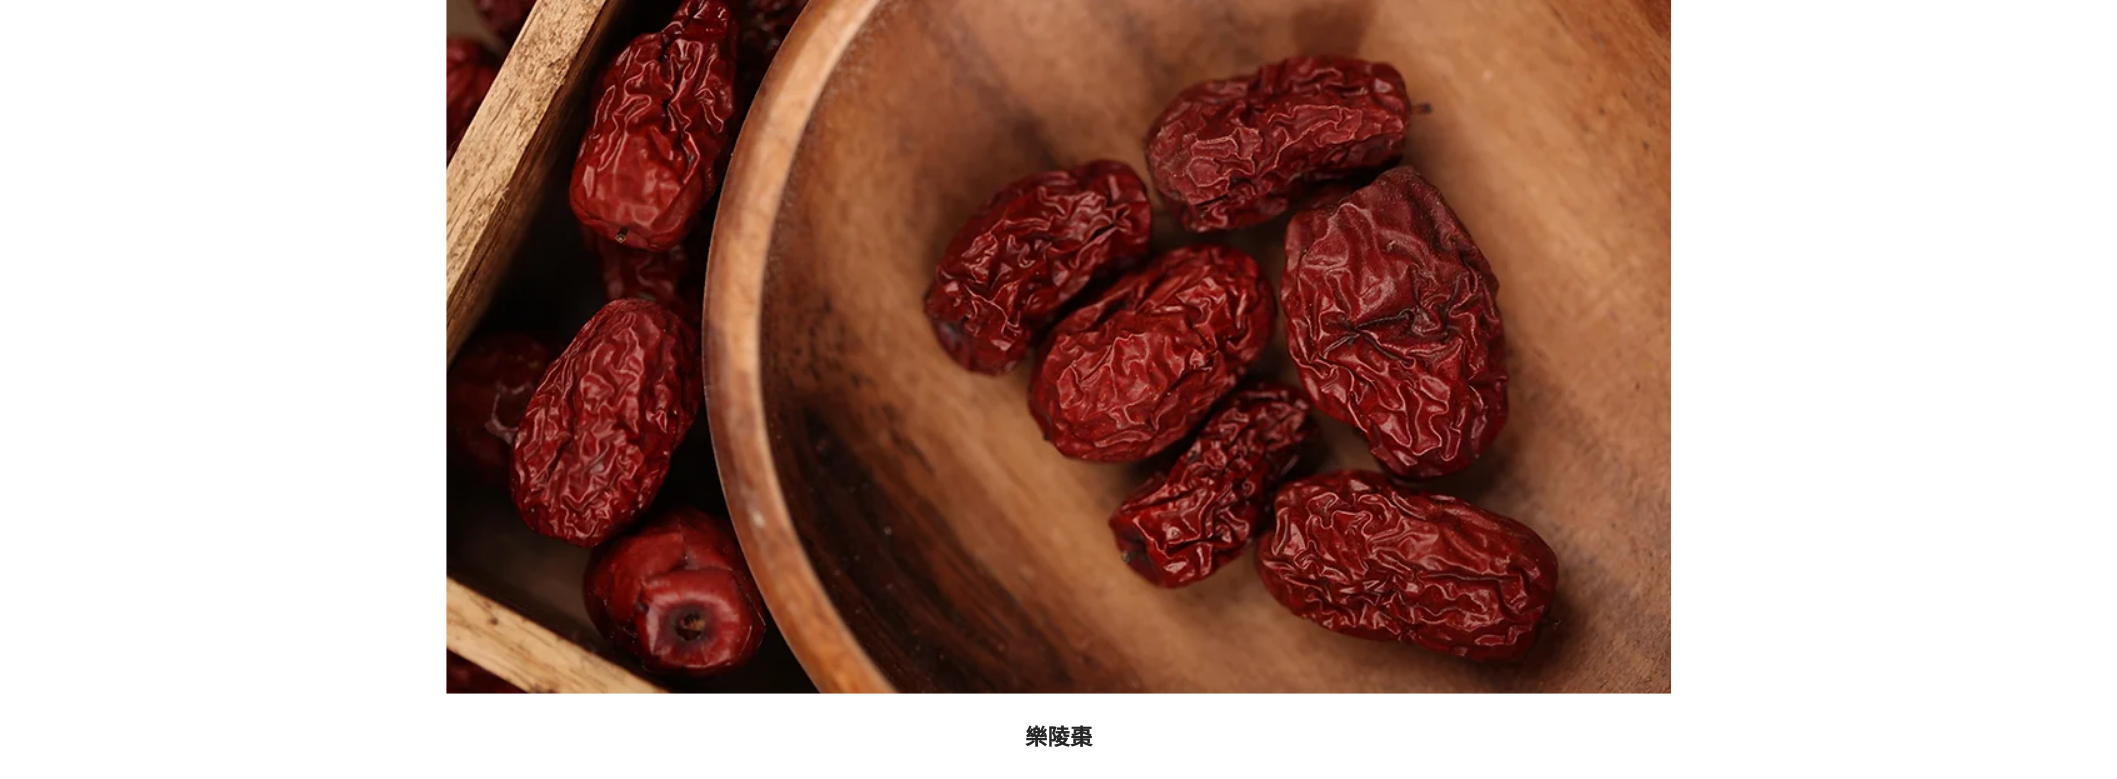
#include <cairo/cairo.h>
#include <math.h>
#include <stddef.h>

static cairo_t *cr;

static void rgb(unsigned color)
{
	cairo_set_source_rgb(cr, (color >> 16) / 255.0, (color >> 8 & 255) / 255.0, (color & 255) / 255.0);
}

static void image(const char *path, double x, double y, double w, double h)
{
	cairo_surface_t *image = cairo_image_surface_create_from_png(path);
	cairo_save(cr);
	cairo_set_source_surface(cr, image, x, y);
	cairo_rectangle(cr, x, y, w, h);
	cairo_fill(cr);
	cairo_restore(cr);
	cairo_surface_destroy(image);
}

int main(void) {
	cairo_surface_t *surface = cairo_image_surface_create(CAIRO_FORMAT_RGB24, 2117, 779);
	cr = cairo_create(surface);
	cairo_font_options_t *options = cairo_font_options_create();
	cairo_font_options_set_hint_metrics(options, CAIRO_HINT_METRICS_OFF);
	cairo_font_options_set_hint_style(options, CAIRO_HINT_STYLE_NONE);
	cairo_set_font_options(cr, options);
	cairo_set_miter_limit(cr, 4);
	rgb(0xffffff);
	cairo_paint(cr);
	image("img/1.png", 446, 0, 1226, 694);
	cairo_select_font_face(cr, "Noto Sans TC", CAIRO_FONT_SLANT_NORMAL, CAIRO_FONT_WEIGHT_BOLD);
	cairo_set_font_size(cr, 22.5);
	rgb(0x242424);
	cairo_move_to(cr, 1025, 745);
	cairo_show_text(cr, "樂陵棗");
	cairo_surface_write_to_png(surface, "page.png");
	cairo_font_options_destroy(options);
	cairo_destroy(cr);
	cairo_surface_destroy(surface);
	return 0;
}
